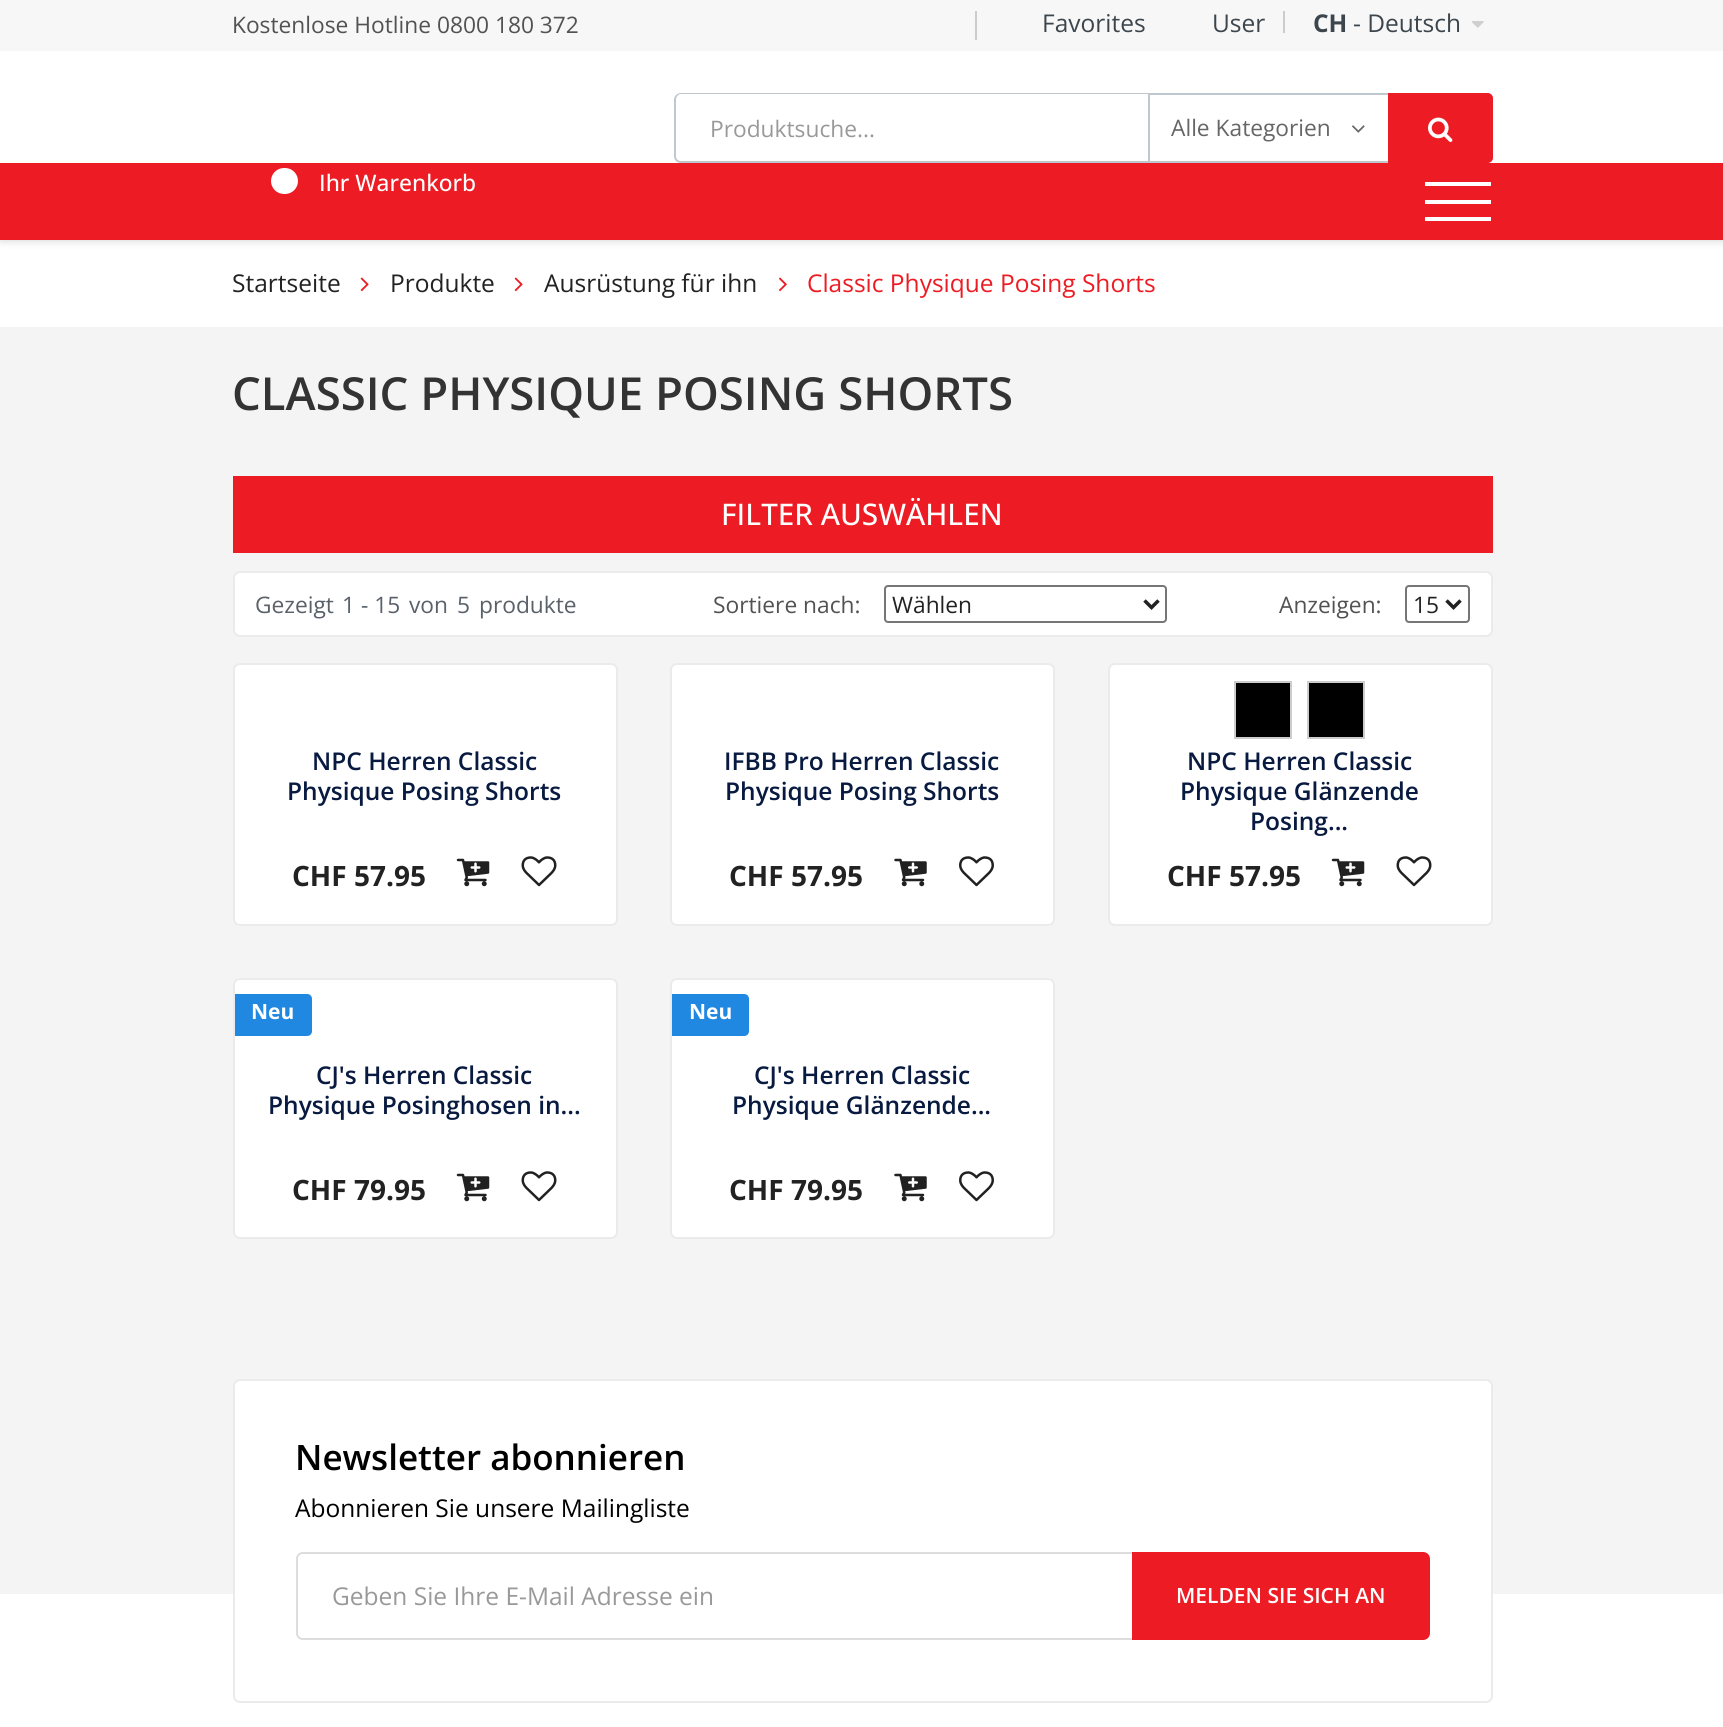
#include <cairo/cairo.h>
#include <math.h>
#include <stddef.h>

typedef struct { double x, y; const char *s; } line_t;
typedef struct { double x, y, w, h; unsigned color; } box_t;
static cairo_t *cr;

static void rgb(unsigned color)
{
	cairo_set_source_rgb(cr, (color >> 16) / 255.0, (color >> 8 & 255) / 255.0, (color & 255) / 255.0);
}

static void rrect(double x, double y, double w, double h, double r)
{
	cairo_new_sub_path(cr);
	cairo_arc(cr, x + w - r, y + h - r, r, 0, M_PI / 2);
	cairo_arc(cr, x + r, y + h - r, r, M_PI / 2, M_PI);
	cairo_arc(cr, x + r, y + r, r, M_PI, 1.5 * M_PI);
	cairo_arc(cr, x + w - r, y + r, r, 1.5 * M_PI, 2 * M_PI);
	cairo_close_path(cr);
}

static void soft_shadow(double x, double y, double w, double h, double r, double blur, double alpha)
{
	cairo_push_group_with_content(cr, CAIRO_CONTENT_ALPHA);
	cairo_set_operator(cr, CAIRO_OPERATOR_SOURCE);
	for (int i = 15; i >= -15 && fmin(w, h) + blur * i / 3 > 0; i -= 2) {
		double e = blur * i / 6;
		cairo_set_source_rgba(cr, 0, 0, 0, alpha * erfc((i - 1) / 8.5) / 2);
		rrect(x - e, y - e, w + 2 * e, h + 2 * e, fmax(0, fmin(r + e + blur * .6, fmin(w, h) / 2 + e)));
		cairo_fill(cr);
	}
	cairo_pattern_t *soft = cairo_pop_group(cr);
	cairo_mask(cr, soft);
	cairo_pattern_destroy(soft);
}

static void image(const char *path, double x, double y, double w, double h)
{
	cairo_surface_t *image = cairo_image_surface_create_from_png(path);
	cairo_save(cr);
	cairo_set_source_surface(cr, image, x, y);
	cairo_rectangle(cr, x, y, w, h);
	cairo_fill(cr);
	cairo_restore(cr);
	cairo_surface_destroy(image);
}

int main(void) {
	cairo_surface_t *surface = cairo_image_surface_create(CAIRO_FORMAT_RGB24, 1723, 1727);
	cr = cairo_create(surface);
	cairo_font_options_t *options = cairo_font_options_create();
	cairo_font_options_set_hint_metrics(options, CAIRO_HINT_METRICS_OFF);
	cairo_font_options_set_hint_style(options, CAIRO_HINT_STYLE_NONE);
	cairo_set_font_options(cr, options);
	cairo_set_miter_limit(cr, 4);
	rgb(0xf4f4f4);
	cairo_paint(cr);
	rgb(0xffffff);
	cairo_rectangle(cr, 0, 240, 1723, 87);
	cairo_fill(cr);
	rgb(0x000000);
	soft_shadow(0, 0, 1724, 240, 0, 4.5, 0.2);
	{
		static const box_t items[] = {
			{0, 51, 1723, 112, 0xffffff},
			{0, 0, 1723, 51, 0xf7f7f7},
			{975, 11, 2, 29, 0xcccccc},
			{1283, 11, 2, 22, 0xcccccc},
		};
		for (size_t i = 0; i < sizeof items / sizeof *items; i++) {
			rgb(items[i].color);
			cairo_rectangle(cr, items[i].x, items[i].y, items[i].w, items[i].h);
			cairo_fill(cr);
		}
	}
	image("img/1.png", 1471, 21, 13, 7);
	rgb(0xbec8ce);
	cairo_set_fill_rule(cr, CAIRO_FILL_RULE_EVEN_ODD);
	cairo_new_path(cr);
	cairo_move_to(cr, 681, 93);
	cairo_line_to(cr, 1148, 93);
	cairo_line_to(cr, 1148, 163);
	cairo_line_to(cr, 681, 163);
	cairo_curve_to(cr, 677, 163, 674, 160, 674, 156);
	cairo_line_to(cr, 674, 100);
	cairo_curve_to(cr, 674, 96, 677, 93, 681, 93);
	cairo_close_path(cr);
	cairo_move_to(cr, 681, 94);
	cairo_line_to(cr, 1148, 94);
	cairo_line_to(cr, 1148, 161);
	cairo_line_to(cr, 681, 161);
	cairo_curve_to(cr, 678, 161, 676, 159, 676, 156);
	cairo_line_to(cr, 676, 100);
	cairo_curve_to(cr, 676, 97, 678, 94, 681, 94);
	cairo_close_path(cr);
	cairo_fill(cr);
	{
		static const box_t items[] = {
			{1148, 93, 240, 2, 0xbec8ce},
			{1148, 161, 240, 2, 0xbec8ce},
			{1148, 93, 2, 70, 0xbec8ce},
		};
		for (size_t i = 0; i < sizeof items / sizeof *items; i++) {
			rgb(items[i].color);
			cairo_rectangle(cr, items[i].x, items[i].y, items[i].w, items[i].h);
			cairo_fill(cr);
		}
	}
	image("img/2.png", 1352, 125, 13, 8);
	rgb(0xed1c24);
	cairo_new_path(cr);
	cairo_move_to(cr, 1389, 94);
	cairo_line_to(cr, 1488, 94);
	cairo_curve_to(cr, 1490, 94, 1492, 96, 1492, 98);
	cairo_line_to(cr, 1492, 158);
	cairo_curve_to(cr, 1492, 160, 1490, 162, 1488, 162);
	cairo_line_to(cr, 1389, 162);
	cairo_close_path(cr);
	cairo_fill_preserve(cr);
	cairo_stroke(cr);
	image("img/3.png", 1428, 117, 25, 25);
	cairo_rectangle(cr, 0, 163, 1723, 77);
	cairo_fill(cr);
	rgb(0xffffff);
	rrect(271, 168, 27, 26, 13);
	cairo_fill(cr);
	{
		static const box_t items[] = {
			{1425, 200, 66, 4, 0xffffff},
			{1425, 182, 66, 4, 0xffffff},
			{1425, 217, 66, 4, 0xffffff},
		};
		for (size_t i = 0; i < sizeof items / sizeof *items; i++) {
			rgb(items[i].color);
			cairo_rectangle(cr, items[i].x, items[i].y, items[i].w, items[i].h);
			cairo_fill(cr);
		}
	}
	image("img/4.png", 360, 277, 9, 15);
	image("img/4.png", 514, 277, 9, 15);
	image("img/5.png", 779, 277, 8, 15);
	rgb(0xed1c24);
	cairo_rectangle(cr, 233, 476, 1260, 77);
	cairo_fill(cr);
	rgb(0xffffff);
	rrect(234, 572, 1258, 64, 6);
	cairo_fill_preserve(cr);
	rgb(0xebebeb);
	cairo_stroke(cr);
	rrect(885, 586, 281, 36, 3);
	rgb(0x767676);
	cairo_stroke(cr);
	cairo_new_path(cr);
	cairo_move_to(cr, 1144.5, 600.5);
	cairo_line_to(cr, 1151.5, 607.5);
	cairo_line_to(cr, 1158.5, 600.5);
	rgb(0x222222);
	cairo_set_line_width(cr, 3.5);
	cairo_stroke(cr);
	rrect(1406, 586, 63, 36, 3);
	rgb(0x767676);
	cairo_set_line_width(cr, 2);
	cairo_stroke(cr);
	cairo_new_path(cr);
	cairo_move_to(cr, 1446.5, 600.5);
	cairo_line_to(cr, 1453.5, 607.5);
	cairo_line_to(cr, 1460.5, 600.5);
	rgb(0x222222);
	cairo_set_line_width(cr, 3.5);
	cairo_stroke(cr);
	rgb(0xffffff);
	rrect(234, 664, 383, 261, 6);
	cairo_fill_preserve(cr);
	rgb(0xebebeb);
	cairo_set_line_width(cr, 2);
	cairo_stroke(cr);
	image("img/6.png", 456, 858, 34, 29);
	image("img/7.png", 521, 856, 36, 31);
	rgb(0xffffff);
	rrect(671, 664, 383, 261, 6);
	cairo_fill_preserve(cr);
	rgb(0xebebeb);
	cairo_stroke(cr);
	image("img/8.png", 894, 858, 33, 29);
	image("img/9.png", 959, 856, 35, 31);
	rgb(0xffffff);
	rrect(1109, 664, 383, 261, 6);
	cairo_fill_preserve(cr);
	rgb(0xebebeb);
	cairo_stroke(cr);
	rgb(0x000000);
	cairo_rectangle(cr, 1235, 682, 56, 56);
	cairo_fill_preserve(cr);
	rgb(0xcccccc);
	cairo_stroke(cr);
	rgb(0x000000);
	cairo_rectangle(cr, 1308, 682, 56, 56);
	cairo_fill_preserve(cr);
	rgb(0xcccccc);
	cairo_stroke(cr);
	image("img/6.png", 1331, 858, 34, 29);
	image("img/7.png", 1396, 856, 36, 31);
	rgb(0xffffff);
	rrect(234, 979, 383, 259, 6);
	cairo_fill_preserve(cr);
	rgb(0xebebeb);
	cairo_stroke(cr);
	rgb(0x2188e1);
	cairo_new_path(cr);
	cairo_move_to(cr, 235, 994);
	cairo_line_to(cr, 307, 994);
	cairo_curve_to(cr, 310, 994, 312, 996, 312, 999);
	cairo_line_to(cr, 312, 1031);
	cairo_curve_to(cr, 312, 1034, 310, 1036, 307, 1036);
	cairo_line_to(cr, 235, 1036);
	cairo_close_path(cr);
	cairo_fill(cr);
	image("img/6.png", 456, 1173, 34, 29);
	image("img/7.png", 521, 1171, 36, 31);
	rgb(0xffffff);
	rrect(671, 979, 383, 259, 6);
	cairo_fill_preserve(cr);
	rgb(0xebebeb);
	cairo_stroke(cr);
	rgb(0x2188e1);
	cairo_new_path(cr);
	cairo_move_to(cr, 672, 994);
	cairo_line_to(cr, 744, 994);
	cairo_curve_to(cr, 747, 994, 749, 996, 749, 999);
	cairo_line_to(cr, 749, 1031);
	cairo_curve_to(cr, 749, 1034, 747, 1036, 744, 1036);
	cairo_line_to(cr, 672, 1036);
	cairo_close_path(cr);
	cairo_fill(cr);
	image("img/8.png", 894, 1173, 33, 29);
	image("img/9.png", 959, 1171, 35, 31);
	rgb(0xffffff);
	cairo_rectangle(cr, 0, 1594, 1723, 133);
	cairo_fill(cr);
	rrect(234, 1380, 1258, 322, 6);
	cairo_fill_preserve(cr);
	rgb(0xebebeb);
	cairo_stroke(cr);
	cairo_new_path(cr);
	cairo_move_to(cr, 303, 1553);
	cairo_line_to(cr, 1133, 1553);
	cairo_line_to(cr, 1133, 1639);
	cairo_line_to(cr, 303, 1639);
	cairo_curve_to(cr, 299.5, 1639, 297, 1636.5, 297, 1633);
	cairo_line_to(cr, 297, 1559);
	cairo_curve_to(cr, 297, 1555.5, 299.5, 1553, 303, 1553);
	cairo_close_path(cr);
	rgb(0xdddddd);
	cairo_stroke(cr);
	rgb(0xed1c24);
	cairo_new_path(cr);
	cairo_move_to(cr, 1132, 1552);
	cairo_line_to(cr, 1423, 1552);
	cairo_curve_to(cr, 1427, 1552, 1430, 1555, 1430, 1559);
	cairo_line_to(cr, 1430, 1633);
	cairo_curve_to(cr, 1430, 1637, 1427, 1640, 1423, 1640);
	cairo_line_to(cr, 1132, 1640);
	cairo_close_path(cr);
	cairo_fill(cr);
	cairo_select_font_face(cr, "Open Sans", CAIRO_FONT_SLANT_NORMAL, CAIRO_FONT_WEIGHT_NORMAL);
	cairo_set_font_size(cr, 22.75);
	rgb(0x525252);
	cairo_move_to(cr, 232, 33);
	cairo_show_text(cr, "Kostenlose Hotline 0800 180 372");
	cairo_set_font_size(cr, 24.5);
	rgb(0x3d464d);
	cairo_move_to(cr, 1042, 32);
	cairo_show_text(cr, "Favorites");
	cairo_move_to(cr, 1212, 32);
	cairo_show_text(cr, "User");
	cairo_select_font_face(cr, "Open Sans", CAIRO_FONT_SLANT_NORMAL, CAIRO_FONT_WEIGHT_BOLD);
	cairo_move_to(cr, 1313, 32);
	cairo_show_text(cr, "CH");
	cairo_select_font_face(cr, "Open Sans", CAIRO_FONT_SLANT_NORMAL, CAIRO_FONT_WEIGHT_NORMAL);
	cairo_move_to(cr, 1353, 32);
	cairo_show_text(cr, "- Deutsch");
	cairo_set_font_size(cr, 22.75);
	rgb(0x999999);
	cairo_move_to(cr, 710, 137);
	cairo_show_text(cr, "Produktsuche...");
	rgb(0x666666);
	cairo_move_to(cr, 1171, 136);
	cairo_show_text(cr, "Alle Kategorien");
	cairo_select_font_face(cr, "Open Sans Medium", CAIRO_FONT_SLANT_NORMAL, CAIRO_FONT_WEIGHT_NORMAL);
	rgb(0xffffff);
	cairo_move_to(cr, 319, 191);
	cairo_show_text(cr, "Ihr Warenkorb");
	cairo_select_font_face(cr, "Open Sans", CAIRO_FONT_SLANT_NORMAL, CAIRO_FONT_WEIGHT_NORMAL);
	cairo_set_font_size(cr, 24.5);
	rgb(0x222222);
	{
		static const line_t items[] = {
			{232, 292, "Startseite"},
			{390, 292, "Produkte"},
			{544, 292, "Ausrüstung für ihn"},
		};
		for (size_t i = 0; i < sizeof items / sizeof *items; i++) {
			cairo_move_to(cr, items[i].x, items[i].y);
			cairo_show_text(cr, items[i].s);
		}
	}
	rgb(0xed1c24);
	cairo_move_to(cr, 807, 292);
	cairo_show_text(cr, "Classic Physique Posing Shorts");
	cairo_select_font_face(cr, "Open Sans SemiBold", CAIRO_FONT_SLANT_NORMAL, CAIRO_FONT_WEIGHT_NORMAL);
	cairo_set_font_size(cr, 45.5);
	rgb(0x333333);
	cairo_move_to(cr, 232, 410);
	cairo_show_text(cr, "CLASSIC PHYSIQUE POSING SHORTS");
	cairo_select_font_face(cr, "Open Sans Medium", CAIRO_FONT_SLANT_NORMAL, CAIRO_FONT_WEIGHT_NORMAL);
	cairo_set_font_size(cr, 29.75);
	rgb(0xffffff);
	cairo_move_to(cr, 721, 525);
	cairo_show_text(cr, "FILTER AUSWÄHLEN");
	cairo_select_font_face(cr, "Open Sans", CAIRO_FONT_SLANT_NORMAL, CAIRO_FONT_WEIGHT_NORMAL);
	cairo_set_font_size(cr, 22.75);
	rgb(0x5a6169);
	{
		static const line_t items[] = {
			{255, 613, "Gezeigt"},
			{342, 613, "1 - 15"},
			{409, 613, "von"},
			{457, 613, "5"},
			{479, 613, "produkte"},
		};
		for (size_t i = 0; i < sizeof items / sizeof *items; i++) {
			cairo_move_to(cr, items[i].x, items[i].y);
			cairo_show_text(cr, items[i].s);
		}
	}
	rgb(0x525252);
	cairo_move_to(cr, 713, 613);
	cairo_show_text(cr, "Sortiere nach:");
	rgb(0x222222);
	cairo_move_to(cr, 892, 613);
	cairo_show_text(cr, "Wählen");
	rgb(0x525252);
	cairo_move_to(cr, 1279, 613);
	cairo_show_text(cr, "Anzeigen:");
	rgb(0x222222);
	cairo_move_to(cr, 1413, 613);
	cairo_show_text(cr, "15");
	cairo_select_font_face(cr, "Open Sans SemiBold", CAIRO_FONT_SLANT_NORMAL, CAIRO_FONT_WEIGHT_NORMAL);
	cairo_set_font_size(cr, 24.5);
	rgb(0x081a40);
	cairo_move_to(cr, 312, 770);
	cairo_show_text(cr, "NPC Herren Classic");
	cairo_move_to(cr, 287, 800);
	cairo_show_text(cr, "Physique Posing Shorts");
	cairo_select_font_face(cr, "Open Sans", CAIRO_FONT_SLANT_NORMAL, CAIRO_FONT_WEIGHT_BOLD);
	cairo_set_font_size(cr, 28);
	rgb(0x222222);
	cairo_move_to(cr, 292, 886);
	cairo_show_text(cr, "CHF 57.95");
	cairo_select_font_face(cr, "Open Sans SemiBold", CAIRO_FONT_SLANT_NORMAL, CAIRO_FONT_WEIGHT_NORMAL);
	cairo_set_font_size(cr, 24.5);
	rgb(0x081a40);
	cairo_move_to(cr, 724, 770);
	cairo_show_text(cr, "IFBB Pro Herren Classic");
	cairo_move_to(cr, 725, 800);
	cairo_show_text(cr, "Physique Posing Shorts");
	cairo_select_font_face(cr, "Open Sans", CAIRO_FONT_SLANT_NORMAL, CAIRO_FONT_WEIGHT_BOLD);
	cairo_set_font_size(cr, 28);
	rgb(0x222222);
	cairo_move_to(cr, 729, 886);
	cairo_show_text(cr, "CHF 57.95");
	cairo_select_font_face(cr, "Open Sans SemiBold", CAIRO_FONT_SLANT_NORMAL, CAIRO_FONT_WEIGHT_NORMAL);
	cairo_set_font_size(cr, 24.5);
	rgb(0x081a40);
	{
		static const line_t items[] = {
			{1187, 770, "NPC Herren Classic"},
			{1180, 800, "Physique Glänzende"},
			{1250, 830, "Posing..."},
		};
		for (size_t i = 0; i < sizeof items / sizeof *items; i++) {
			cairo_move_to(cr, items[i].x, items[i].y);
			cairo_show_text(cr, items[i].s);
		}
	}
	cairo_select_font_face(cr, "Open Sans", CAIRO_FONT_SLANT_NORMAL, CAIRO_FONT_WEIGHT_BOLD);
	cairo_set_font_size(cr, 28);
	rgb(0x222222);
	cairo_move_to(cr, 1167, 886);
	cairo_show_text(cr, "CHF 57.95");
	cairo_set_font_size(cr, 21);
	rgb(0xffffff);
	cairo_move_to(cr, 251, 1019);
	cairo_show_text(cr, "Neu");
	cairo_select_font_face(cr, "Open Sans SemiBold", CAIRO_FONT_SLANT_NORMAL, CAIRO_FONT_WEIGHT_NORMAL);
	cairo_set_font_size(cr, 24.5);
	rgb(0x081a40);
	cairo_move_to(cr, 316, 1084);
	cairo_show_text(cr, "CJ's Herren Classic");
	cairo_move_to(cr, 268, 1114);
	cairo_show_text(cr, "Physique Posinghosen in...");
	cairo_select_font_face(cr, "Open Sans", CAIRO_FONT_SLANT_NORMAL, CAIRO_FONT_WEIGHT_BOLD);
	cairo_set_font_size(cr, 28);
	rgb(0x222222);
	cairo_move_to(cr, 292, 1200);
	cairo_show_text(cr, "CHF 79.95");
	cairo_set_font_size(cr, 21);
	rgb(0xffffff);
	cairo_move_to(cr, 689, 1019);
	cairo_show_text(cr, "Neu");
	cairo_select_font_face(cr, "Open Sans SemiBold", CAIRO_FONT_SLANT_NORMAL, CAIRO_FONT_WEIGHT_NORMAL);
	cairo_set_font_size(cr, 24.5);
	rgb(0x081a40);
	cairo_move_to(cr, 754, 1084);
	cairo_show_text(cr, "CJ's Herren Classic");
	cairo_move_to(cr, 732, 1114);
	cairo_show_text(cr, "Physique Glänzende...");
	cairo_select_font_face(cr, "Open Sans", CAIRO_FONT_SLANT_NORMAL, CAIRO_FONT_WEIGHT_BOLD);
	cairo_set_font_size(cr, 28);
	rgb(0x222222);
	cairo_move_to(cr, 729, 1200);
	cairo_show_text(cr, "CHF 79.95");
	cairo_select_font_face(cr, "Open Sans SemiBold", CAIRO_FONT_SLANT_NORMAL, CAIRO_FONT_WEIGHT_NORMAL);
	cairo_set_font_size(cr, 35);
	rgb(0x000000);
	cairo_move_to(cr, 295, 1470);
	cairo_show_text(cr, "Newsletter abonnieren");
	cairo_select_font_face(cr, "Open Sans", CAIRO_FONT_SLANT_NORMAL, CAIRO_FONT_WEIGHT_NORMAL);
	cairo_set_font_size(cr, 24.5);
	cairo_move_to(cr, 295, 1517);
	cairo_show_text(cr, "Abonnieren Sie unsere Mailingliste");
	rgb(0x999999);
	cairo_move_to(cr, 332, 1605);
	cairo_show_text(cr, "Geben Sie Ihre E-Mail Adresse ein");
	cairo_select_font_face(cr, "Open Sans SemiBold", CAIRO_FONT_SLANT_NORMAL, CAIRO_FONT_WEIGHT_NORMAL);
	cairo_set_font_size(cr, 21);
	rgb(0xffffff);
	cairo_move_to(cr, 1176, 1603);
	cairo_show_text(cr, "MELDEN SIE SICH AN");
	cairo_surface_write_to_png(surface, "page.png");
	cairo_font_options_destroy(options);
	cairo_destroy(cr);
	cairo_surface_destroy(surface);
	return 0;
}
